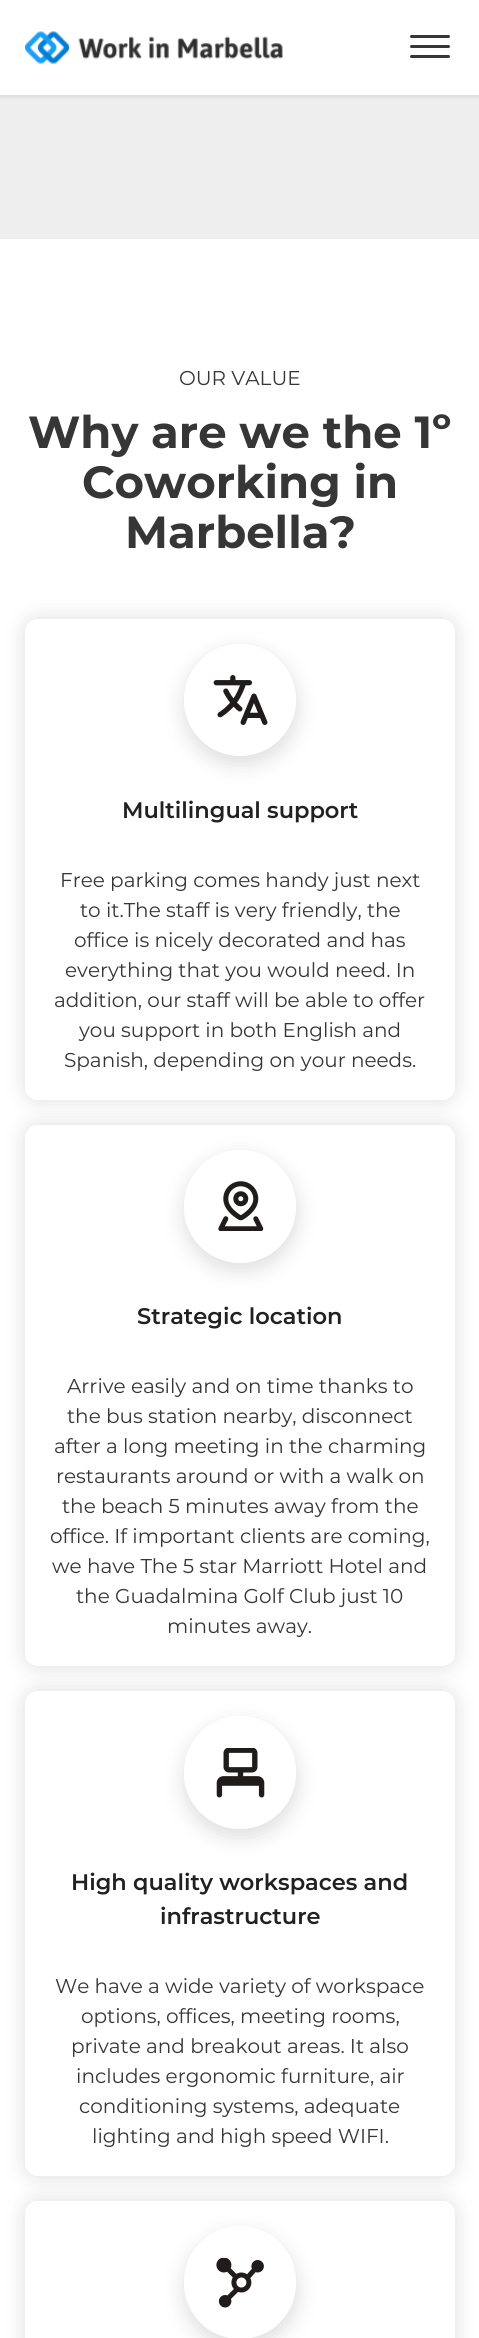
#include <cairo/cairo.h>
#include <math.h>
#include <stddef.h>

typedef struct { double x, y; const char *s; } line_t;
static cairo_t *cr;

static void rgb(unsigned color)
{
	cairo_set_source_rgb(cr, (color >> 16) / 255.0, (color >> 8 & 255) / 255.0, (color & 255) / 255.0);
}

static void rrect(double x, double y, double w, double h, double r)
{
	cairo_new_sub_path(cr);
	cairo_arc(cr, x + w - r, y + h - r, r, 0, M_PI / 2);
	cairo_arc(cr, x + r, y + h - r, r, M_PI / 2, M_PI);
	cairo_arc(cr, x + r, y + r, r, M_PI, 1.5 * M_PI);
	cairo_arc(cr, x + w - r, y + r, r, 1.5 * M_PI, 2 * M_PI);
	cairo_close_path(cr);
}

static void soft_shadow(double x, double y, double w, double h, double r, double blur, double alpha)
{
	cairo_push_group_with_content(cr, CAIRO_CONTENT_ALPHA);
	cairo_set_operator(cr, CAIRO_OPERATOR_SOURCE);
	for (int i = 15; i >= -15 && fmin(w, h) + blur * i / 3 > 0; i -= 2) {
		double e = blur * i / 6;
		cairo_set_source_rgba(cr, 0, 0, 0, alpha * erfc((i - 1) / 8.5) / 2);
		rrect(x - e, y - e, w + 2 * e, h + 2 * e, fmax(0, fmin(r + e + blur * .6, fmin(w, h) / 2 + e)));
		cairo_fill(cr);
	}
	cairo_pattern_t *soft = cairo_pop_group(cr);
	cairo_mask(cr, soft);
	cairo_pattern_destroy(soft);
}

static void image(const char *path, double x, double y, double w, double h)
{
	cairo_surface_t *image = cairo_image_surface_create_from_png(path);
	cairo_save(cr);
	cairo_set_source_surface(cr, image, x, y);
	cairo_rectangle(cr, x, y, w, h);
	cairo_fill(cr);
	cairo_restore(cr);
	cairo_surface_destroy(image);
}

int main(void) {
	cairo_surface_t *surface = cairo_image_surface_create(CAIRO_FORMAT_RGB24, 479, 2338);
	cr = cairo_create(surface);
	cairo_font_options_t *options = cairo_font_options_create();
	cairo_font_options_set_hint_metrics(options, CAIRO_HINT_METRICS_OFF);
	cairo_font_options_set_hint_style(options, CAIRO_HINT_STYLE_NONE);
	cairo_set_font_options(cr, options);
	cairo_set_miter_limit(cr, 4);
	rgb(0xffffff);
	cairo_paint(cr);
	rgb(0xeeeeee);
	cairo_rectangle(cr, 0, 95, 479, 144);
	cairo_fill(cr);
	rgb(0xe0e0e0);
	soft_shadow(-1, 0, 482, 98, 0, 1, 1);
	rgb(0xffffff);
	cairo_rectangle(cr, 0, 0, 479, 95);
	cairo_fill(cr);
	image("img/1.png", 25, 31, 258, 33);
	rgb(0x363636);
	rrect(410, 35, 40, 3, 1.5);
	cairo_fill(cr);
	rrect(410, 45, 40, 3, 1.5);
	cairo_fill(cr);
	rrect(410, 55, 40, 3, 1.5);
	cairo_fill(cr);
	cairo_save(cr);
	cairo_set_fill_rule(cr, CAIRO_FILL_RULE_EVEN_ODD);
	cairo_new_path(cr);
	cairo_move_to(cr, 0, 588);
	cairo_line_to(cr, 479, 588);
	cairo_line_to(cr, 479, 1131);
	cairo_line_to(cr, 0, 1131);
	cairo_close_path(cr);
	cairo_move_to(cr, 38, 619);
	cairo_line_to(cr, 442, 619);
	cairo_curve_to(cr, 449, 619, 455, 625, 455, 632);
	cairo_line_to(cr, 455, 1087);
	cairo_curve_to(cr, 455, 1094, 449, 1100, 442, 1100);
	cairo_line_to(cr, 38, 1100);
	cairo_curve_to(cr, 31, 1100, 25, 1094, 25, 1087);
	cairo_line_to(cr, 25, 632);
	cairo_curve_to(cr, 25, 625, 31, 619, 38, 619);
	cairo_close_path(cr);
	cairo_clip(cr);
	rgb(0xe0e0e0);
	soft_shadow(24, 618, 432, 483, 14, 9.5, 1);
	cairo_restore(cr);
	cairo_save(cr);
	cairo_set_fill_rule(cr, CAIRO_FILL_RULE_EVEN_ODD);
	cairo_new_path(cr);
	cairo_move_to(cr, 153, 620);
	cairo_line_to(cr, 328, 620);
	cairo_line_to(cr, 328, 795);
	cairo_line_to(cr, 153, 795);
	cairo_close_path(cr);
	cairo_move_to(cr, 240, 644);
	cairo_curve_to(cr, 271, 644, 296, 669, 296, 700);
	cairo_curve_to(cr, 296, 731, 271, 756, 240, 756);
	cairo_curve_to(cr, 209, 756, 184, 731, 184, 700);
	cairo_curve_to(cr, 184, 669, 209, 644, 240, 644);
	cairo_close_path(cr);
	cairo_clip(cr);
	rgb(0xe0e0e0);
	soft_shadow(183, 650, 115, 115, 57.5, 9.5, 1);
	cairo_restore(cr);
	image("img/2.png", 213, 675, 55, 50);
	cairo_save(cr);
	cairo_set_fill_rule(cr, CAIRO_FILL_RULE_EVEN_ODD);
	cairo_new_path(cr);
	cairo_move_to(cr, 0, 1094);
	cairo_line_to(cr, 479, 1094);
	cairo_line_to(cr, 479, 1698);
	cairo_line_to(cr, 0, 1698);
	cairo_close_path(cr);
	cairo_move_to(cr, 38, 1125);
	cairo_line_to(cr, 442, 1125);
	cairo_curve_to(cr, 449, 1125, 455, 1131, 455, 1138);
	cairo_line_to(cr, 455, 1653);
	cairo_curve_to(cr, 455, 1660, 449, 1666, 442, 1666);
	cairo_line_to(cr, 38, 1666);
	cairo_curve_to(cr, 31, 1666, 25, 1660, 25, 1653);
	cairo_line_to(cr, 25, 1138);
	cairo_curve_to(cr, 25, 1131, 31, 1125, 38, 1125);
	cairo_close_path(cr);
	cairo_clip(cr);
	rgb(0xe0e0e0);
	soft_shadow(24, 1124, 432, 544, 14, 9.5, 1);
	cairo_restore(cr);
	cairo_save(cr);
	cairo_set_fill_rule(cr, CAIRO_FILL_RULE_EVEN_ODD);
	cairo_new_path(cr);
	cairo_move_to(cr, 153, 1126);
	cairo_line_to(cr, 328, 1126);
	cairo_line_to(cr, 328, 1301);
	cairo_line_to(cr, 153, 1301);
	cairo_close_path(cr);
	cairo_move_to(cr, 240, 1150);
	cairo_curve_to(cr, 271, 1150, 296, 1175, 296, 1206);
	cairo_line_to(cr, 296, 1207);
	cairo_curve_to(cr, 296, 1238, 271, 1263, 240, 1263);
	cairo_curve_to(cr, 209, 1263, 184, 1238, 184, 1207);
	cairo_line_to(cr, 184, 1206);
	cairo_curve_to(cr, 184, 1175, 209, 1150, 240, 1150);
	cairo_close_path(cr);
	cairo_clip(cr);
	rgb(0xe0e0e0);
	soft_shadow(183, 1156, 115, 115, 57.5, 9.5, 1);
	cairo_restore(cr);
	image("img/3.png", 218, 1181, 46, 50);
	cairo_save(cr);
	cairo_set_fill_rule(cr, CAIRO_FILL_RULE_EVEN_ODD);
	cairo_new_path(cr);
	cairo_move_to(cr, 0, 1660);
	cairo_line_to(cr, 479, 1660);
	cairo_line_to(cr, 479, 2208);
	cairo_line_to(cr, 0, 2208);
	cairo_close_path(cr);
	cairo_move_to(cr, 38, 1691);
	cairo_line_to(cr, 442, 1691);
	cairo_curve_to(cr, 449, 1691, 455, 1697, 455, 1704);
	cairo_line_to(cr, 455, 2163);
	cairo_curve_to(cr, 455, 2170, 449, 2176, 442, 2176);
	cairo_line_to(cr, 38, 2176);
	cairo_curve_to(cr, 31, 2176, 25, 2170, 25, 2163);
	cairo_line_to(cr, 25, 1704);
	cairo_curve_to(cr, 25, 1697, 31, 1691, 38, 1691);
	cairo_close_path(cr);
	cairo_clip(cr);
	rgb(0xe0e0e0);
	soft_shadow(24, 1690, 432, 488, 14, 9.5, 1);
	cairo_restore(cr);
	cairo_save(cr);
	cairo_set_fill_rule(cr, CAIRO_FILL_RULE_EVEN_ODD);
	cairo_new_path(cr);
	cairo_move_to(cr, 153, 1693);
	cairo_line_to(cr, 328, 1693);
	cairo_line_to(cr, 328, 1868);
	cairo_line_to(cr, 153, 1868);
	cairo_close_path(cr);
	cairo_move_to(cr, 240, 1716);
	cairo_curve_to(cr, 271, 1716, 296, 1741, 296, 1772);
	cairo_line_to(cr, 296, 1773);
	cairo_curve_to(cr, 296, 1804, 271, 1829, 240, 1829);
	cairo_curve_to(cr, 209, 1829, 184, 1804, 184, 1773);
	cairo_line_to(cr, 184, 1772);
	cairo_curve_to(cr, 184, 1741, 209, 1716, 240, 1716);
	cairo_close_path(cr);
	cairo_clip(cr);
	rgb(0xe0e0e0);
	soft_shadow(183, 1723, 115, 115, 57.5, 9.5, 1);
	cairo_restore(cr);
	image("img/4.png", 216, 1748, 49, 50);
	cairo_save(cr);
	cairo_set_fill_rule(cr, CAIRO_FILL_RULE_EVEN_ODD);
	cairo_new_path(cr);
	cairo_move_to(cr, 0, 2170);
	cairo_line_to(cr, 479, 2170);
	cairo_line_to(cr, 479, 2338);
	cairo_line_to(cr, 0, 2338);
	cairo_close_path(cr);
	cairo_move_to(cr, 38, 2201);
	cairo_line_to(cr, 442, 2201);
	cairo_curve_to(cr, 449, 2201, 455, 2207, 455, 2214);
	cairo_line_to(cr, 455, 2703);
	cairo_curve_to(cr, 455, 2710, 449, 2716, 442, 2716);
	cairo_line_to(cr, 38, 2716);
	cairo_curve_to(cr, 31, 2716, 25, 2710, 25, 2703);
	cairo_line_to(cr, 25, 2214);
	cairo_curve_to(cr, 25, 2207, 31, 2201, 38, 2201);
	cairo_close_path(cr);
	cairo_clip(cr);
	rgb(0xe0e0e0);
	soft_shadow(24, 2200, 432, 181, 14, 9.5, 1);
	cairo_restore(cr);
	cairo_save(cr);
	cairo_set_fill_rule(cr, CAIRO_FILL_RULE_EVEN_ODD);
	cairo_new_path(cr);
	cairo_move_to(cr, 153, 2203);
	cairo_line_to(cr, 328, 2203);
	cairo_line_to(cr, 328, 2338);
	cairo_line_to(cr, 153, 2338);
	cairo_close_path(cr);
	cairo_move_to(cr, 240, 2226);
	cairo_curve_to(cr, 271, 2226, 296, 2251, 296, 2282);
	cairo_line_to(cr, 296, 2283);
	cairo_curve_to(cr, 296, 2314, 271, 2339, 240, 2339);
	cairo_curve_to(cr, 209, 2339, 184, 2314, 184, 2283);
	cairo_line_to(cr, 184, 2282);
	cairo_curve_to(cr, 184, 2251, 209, 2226, 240, 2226);
	cairo_close_path(cr);
	cairo_clip(cr);
	rgb(0xe0e0e0);
	soft_shadow(183, 2233, 115, 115, 57.5, 9.5, 1);
	cairo_restore(cr);
	image("img/5.png", 216, 2258, 48, 50);
	cairo_select_font_face(cr, "Montserrat", CAIRO_FONT_SLANT_NORMAL, CAIRO_FONT_WEIGHT_NORMAL);
	cairo_set_font_size(cr, 20);
	cairo_move_to(cr, 179, 385);
	cairo_show_text(cr, "OUR VALUE");
	cairo_select_font_face(cr, "Montserrat", CAIRO_FONT_SLANT_NORMAL, CAIRO_FONT_WEIGHT_BOLD);
	cairo_set_font_size(cr, 45);
	{
		static const line_t items[] = {
			{28, 448, "Why are we the 1º"},
			{82, 498, "Coworking in"},
			{125, 548, "Marbella?"},
		};
		for (size_t i = 0; i < sizeof items / sizeof *items; i++) {
			cairo_move_to(cr, items[i].x, items[i].y);
			cairo_show_text(cr, items[i].s);
		}
	}
	cairo_select_font_face(cr, "Montserrat SemiBold", CAIRO_FONT_SLANT_NORMAL, CAIRO_FONT_WEIGHT_NORMAL);
	cairo_set_font_size(cr, 22.5);
	rgb(0x212121);
	cairo_move_to(cr, 122, 818);
	cairo_show_text(cr, "Multilingual support");
	cairo_select_font_face(cr, "Montserrat", CAIRO_FONT_SLANT_NORMAL, CAIRO_FONT_WEIGHT_NORMAL);
	cairo_set_font_size(cr, 20);
	rgb(0x363636);
	{
		static const line_t items[] = {
			{60, 887, "Free parking comes handy just next"},
			{80, 917, "to it.The staff is very friendly, the"},
			{74, 947, "office is nicely decorated and has"},
			{65, 977, "everything that you would need. In"},
			{54, 1007, "addition, our staff will be able to offer"},
			{79, 1037, "you support in both English and"},
			{64, 1067, "Spanish, depending on your needs."},
		};
		for (size_t i = 0; i < sizeof items / sizeof *items; i++) {
			cairo_move_to(cr, items[i].x, items[i].y);
			cairo_show_text(cr, items[i].s);
		}
	}
	cairo_select_font_face(cr, "Montserrat SemiBold", CAIRO_FONT_SLANT_NORMAL, CAIRO_FONT_WEIGHT_NORMAL);
	cairo_set_font_size(cr, 22.5);
	rgb(0x212121);
	cairo_move_to(cr, 137, 1324);
	cairo_show_text(cr, "Strategic location");
	cairo_select_font_face(cr, "Montserrat", CAIRO_FONT_SLANT_NORMAL, CAIRO_FONT_WEIGHT_NORMAL);
	cairo_set_font_size(cr, 20);
	rgb(0x363636);
	{
		static const line_t items[] = {
			{67, 1393, "Arrive easily and on time thanks to"},
			{67, 1423, "the bus station nearby, disconnect"},
			{54, 1453, "after a long meeting in the charming"},
			{56, 1483, "restaurants around or with a walk on"},
			{62, 1513, "the beach 5 minutes away from the"},
			{50, 1543, "office. If important clients are coming,"},
			{52, 1573, "we have The 5 star Marriott Hotel and"},
			{76, 1603, "the Guadalmina Golf Club just 10"},
			{167, 1633, "minutes away."},
		};
		for (size_t i = 0; i < sizeof items / sizeof *items; i++) {
			cairo_move_to(cr, items[i].x, items[i].y);
			cairo_show_text(cr, items[i].s);
		}
	}
	cairo_select_font_face(cr, "Montserrat SemiBold", CAIRO_FONT_SLANT_NORMAL, CAIRO_FONT_WEIGHT_NORMAL);
	cairo_set_font_size(cr, 22.5);
	rgb(0x212121);
	cairo_move_to(cr, 71, 1890);
	cairo_show_text(cr, "High quality workspaces and");
	cairo_move_to(cr, 160, 1924);
	cairo_show_text(cr, "infrastructure");
	cairo_select_font_face(cr, "Montserrat", CAIRO_FONT_SLANT_NORMAL, CAIRO_FONT_WEIGHT_NORMAL);
	cairo_set_font_size(cr, 20);
	rgb(0x363636);
	{
		static const line_t items[] = {
			{55, 1993, "We have a wide variety of workspace"},
			{81, 2023, "options, offices, meeting rooms,"},
			{71, 2053, "private and breakout areas. It also"},
			{76, 2083, "includes ergonomic furniture, air"},
			{79, 2113, "conditioning systems, adequate"},
			{92, 2143, "lighting and high speed WIFI."},
		};
		for (size_t i = 0; i < sizeof items / sizeof *items; i++) {
			cairo_move_to(cr, items[i].x, items[i].y);
			cairo_show_text(cr, items[i].s);
		}
	}
	cairo_surface_write_to_png(surface, "page.png");
	cairo_font_options_destroy(options);
	cairo_destroy(cr);
	cairo_surface_destroy(surface);
	return 0;
}
